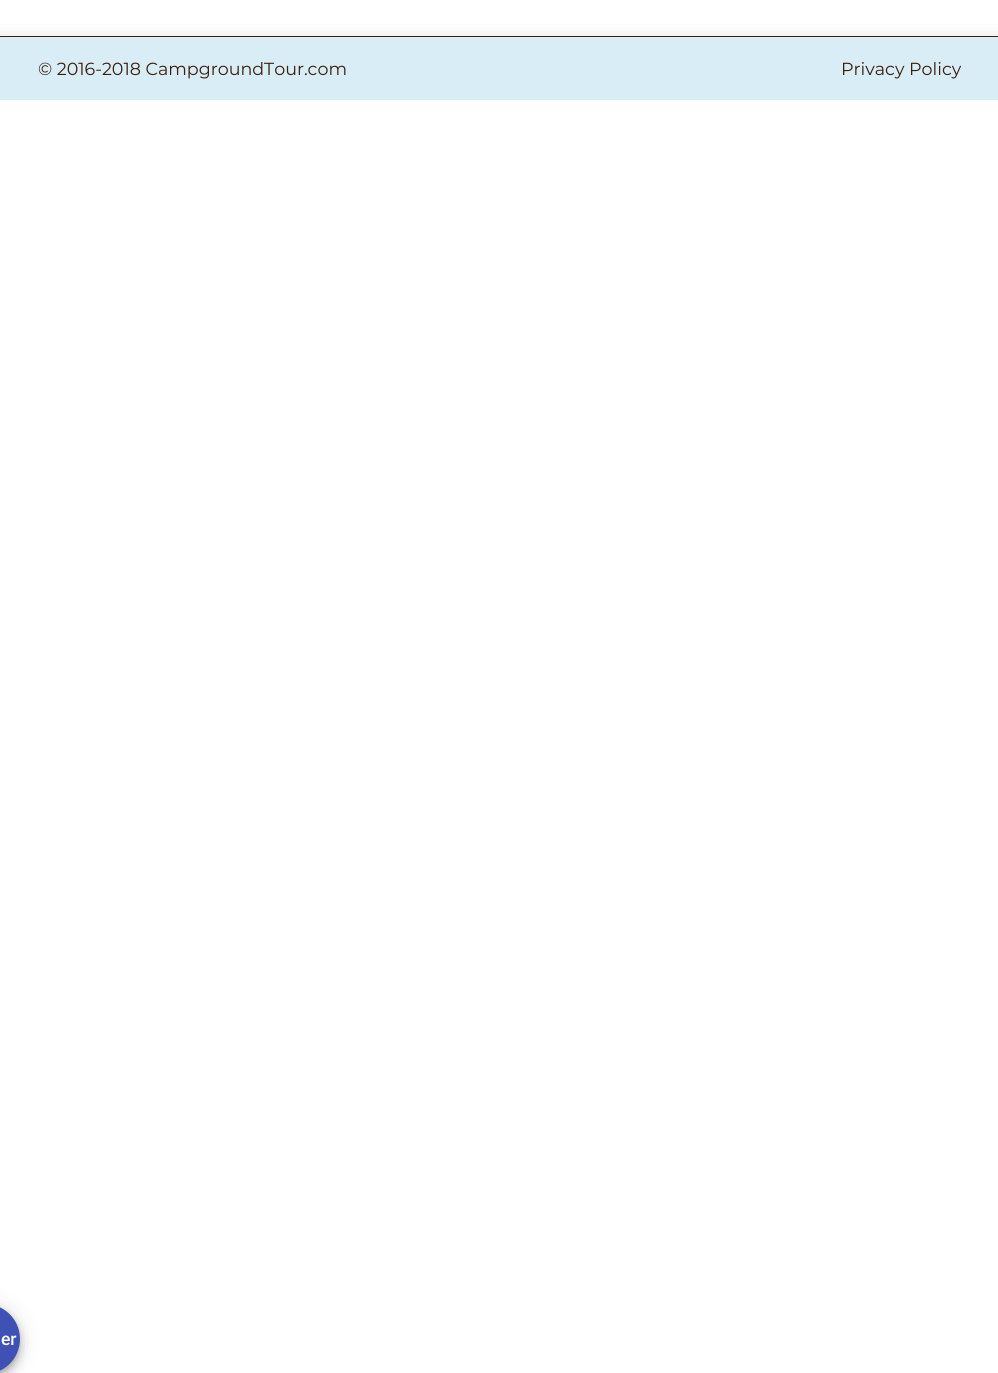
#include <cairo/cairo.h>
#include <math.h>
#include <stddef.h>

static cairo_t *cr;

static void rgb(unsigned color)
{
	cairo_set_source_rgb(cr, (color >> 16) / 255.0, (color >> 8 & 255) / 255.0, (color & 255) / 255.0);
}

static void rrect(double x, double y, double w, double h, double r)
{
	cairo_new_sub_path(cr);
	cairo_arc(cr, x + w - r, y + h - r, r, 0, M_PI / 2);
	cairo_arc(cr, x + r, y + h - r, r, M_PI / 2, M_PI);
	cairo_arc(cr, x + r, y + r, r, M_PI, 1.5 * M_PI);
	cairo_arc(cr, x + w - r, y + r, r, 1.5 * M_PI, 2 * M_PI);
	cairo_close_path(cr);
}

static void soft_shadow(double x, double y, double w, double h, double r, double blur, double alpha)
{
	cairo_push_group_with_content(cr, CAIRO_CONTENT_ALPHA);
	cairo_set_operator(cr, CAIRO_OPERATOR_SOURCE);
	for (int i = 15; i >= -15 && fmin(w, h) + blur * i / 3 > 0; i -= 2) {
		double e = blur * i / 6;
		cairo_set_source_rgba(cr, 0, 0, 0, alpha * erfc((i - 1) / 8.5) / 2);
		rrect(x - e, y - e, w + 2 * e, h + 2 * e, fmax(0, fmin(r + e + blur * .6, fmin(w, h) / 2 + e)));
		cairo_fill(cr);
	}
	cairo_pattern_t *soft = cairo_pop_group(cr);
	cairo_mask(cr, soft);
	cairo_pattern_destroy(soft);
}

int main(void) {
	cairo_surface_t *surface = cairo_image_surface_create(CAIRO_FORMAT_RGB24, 998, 1373);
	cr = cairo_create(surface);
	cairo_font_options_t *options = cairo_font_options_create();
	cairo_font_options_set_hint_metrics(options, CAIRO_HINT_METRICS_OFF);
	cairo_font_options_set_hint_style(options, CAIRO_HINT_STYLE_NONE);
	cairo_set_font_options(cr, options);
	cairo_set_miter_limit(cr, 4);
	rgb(0xffffff);
	cairo_paint(cr);
	cairo_save(cr);
	cairo_rectangle(cr, 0, 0, 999, 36);
	cairo_clip(cr);
	rgb(0x000000);
	soft_shadow(-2, 38, 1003, 1252, 0, 9, 0.12);
	cairo_restore(cr);
	rgb(0xd9edf7);
	cairo_rectangle(cr, 0, 37, 998, 63);
	cairo_fill(cr);
	rgb(0x3c1e0d);
	cairo_rectangle(cr, 0, 36, 998, 1);
	cairo_fill(cr);
	rgb(0x000000);
	soft_shadow(-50, 1305, 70, 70, 35, 11, 0.12);
	soft_shadow(-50, 1311, 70, 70, 35, 6, 0.14);
	soft_shadow(-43, 1309, 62, 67, 33.5, 3, 0.2);
	rgb(0x3f51b5);
	rrect(-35, 1304, 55, 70, 35);
	cairo_fill(cr);
	cairo_select_font_face(cr, "Montserrat Thin", CAIRO_FONT_SLANT_NORMAL, CAIRO_FONT_WEIGHT_NORMAL);
	cairo_set_font_size(cr, 17.5);
	rgb(0x3c1e0d);
	cairo_move_to(cr, 38, 75);
	cairo_show_text(cr, "© 2016-2018 CampgroundTour.com");
	cairo_move_to(cr, 841, 75);
	cairo_show_text(cr, "Privacy Policy");
	cairo_select_font_face(cr, "Roboto Medium", CAIRO_FONT_SLANT_NORMAL, CAIRO_FONT_WEIGHT_NORMAL);
	rgb(0xffffff);
	cairo_move_to(cr, 1, 1345);
	cairo_show_text(cr, "er");
	cairo_surface_write_to_png(surface, "page.png");
	cairo_font_options_destroy(options);
	cairo_destroy(cr);
	cairo_surface_destroy(surface);
	return 0;
}
